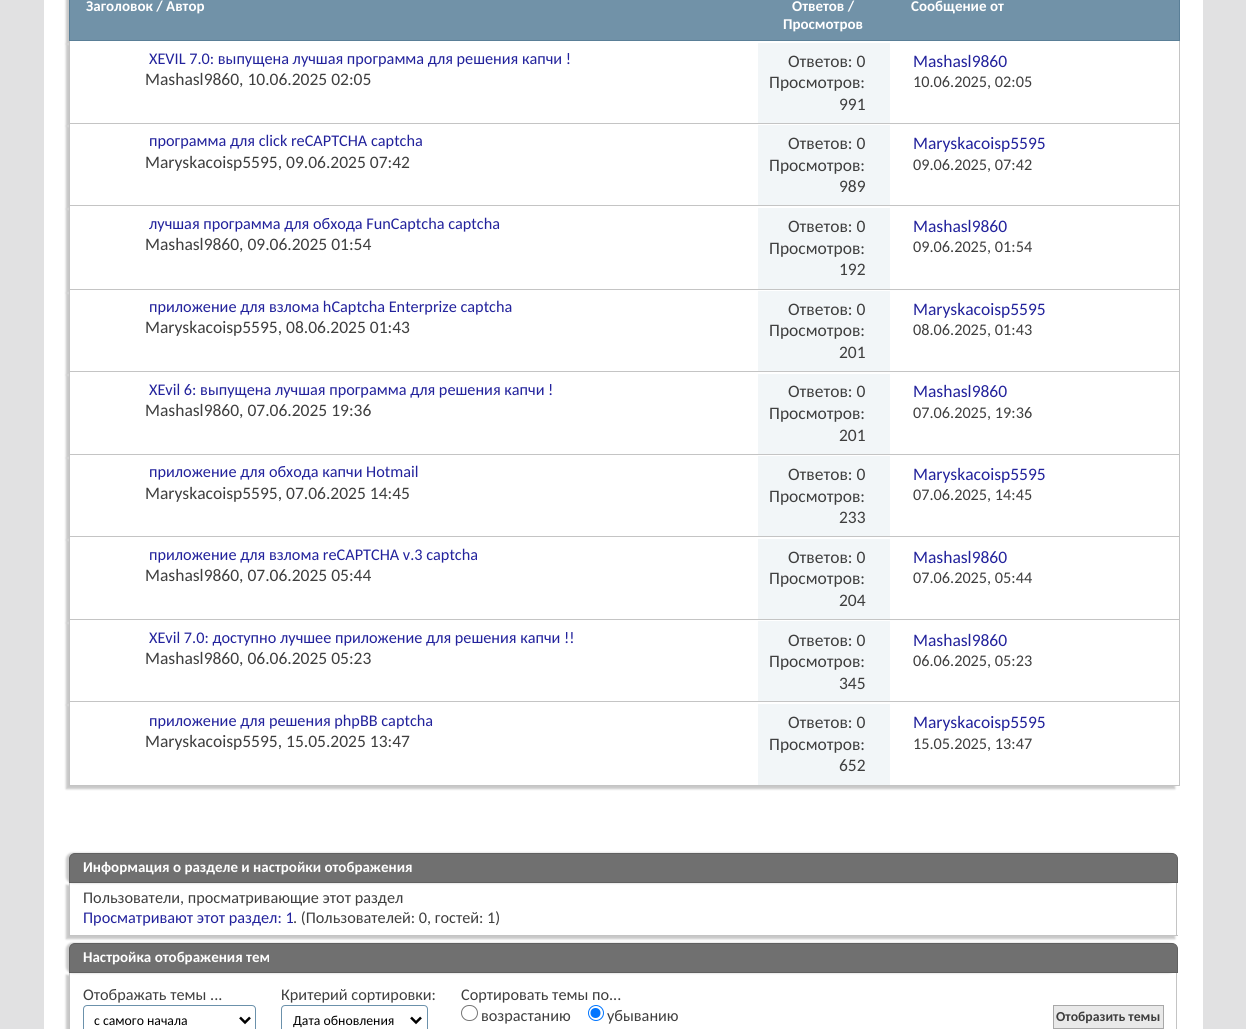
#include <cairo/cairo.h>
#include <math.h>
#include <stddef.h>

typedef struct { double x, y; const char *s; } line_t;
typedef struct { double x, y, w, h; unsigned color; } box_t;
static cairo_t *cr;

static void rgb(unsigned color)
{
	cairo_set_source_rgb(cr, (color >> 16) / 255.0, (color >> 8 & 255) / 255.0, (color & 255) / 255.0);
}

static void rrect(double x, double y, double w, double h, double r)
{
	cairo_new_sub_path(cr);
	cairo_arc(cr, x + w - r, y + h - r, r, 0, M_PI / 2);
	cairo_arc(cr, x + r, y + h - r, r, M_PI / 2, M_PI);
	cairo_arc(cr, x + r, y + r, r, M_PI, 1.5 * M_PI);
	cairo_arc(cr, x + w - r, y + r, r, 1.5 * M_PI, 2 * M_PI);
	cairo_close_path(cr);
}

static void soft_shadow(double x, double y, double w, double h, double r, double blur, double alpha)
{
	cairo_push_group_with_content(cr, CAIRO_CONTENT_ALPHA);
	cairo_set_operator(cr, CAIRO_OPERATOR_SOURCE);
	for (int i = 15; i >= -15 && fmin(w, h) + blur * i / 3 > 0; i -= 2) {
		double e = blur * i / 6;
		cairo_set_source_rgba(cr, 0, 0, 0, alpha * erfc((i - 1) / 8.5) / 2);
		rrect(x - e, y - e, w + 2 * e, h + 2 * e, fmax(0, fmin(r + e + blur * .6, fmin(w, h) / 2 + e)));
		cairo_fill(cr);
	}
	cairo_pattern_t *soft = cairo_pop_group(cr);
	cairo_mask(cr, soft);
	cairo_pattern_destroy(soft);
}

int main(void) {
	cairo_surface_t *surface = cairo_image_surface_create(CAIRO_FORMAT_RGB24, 1246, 1029);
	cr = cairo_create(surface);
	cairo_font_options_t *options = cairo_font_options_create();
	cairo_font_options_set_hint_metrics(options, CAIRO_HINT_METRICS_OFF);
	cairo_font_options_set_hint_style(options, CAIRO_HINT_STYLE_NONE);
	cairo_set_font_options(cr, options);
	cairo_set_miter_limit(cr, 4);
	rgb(0xe1e1e2);
	cairo_paint(cr);
	rgb(0xffffff);
	cairo_rectangle(cr, 44, 0, 1159, 1029);
	cairo_fill(cr);
	rgb(0xc8c8c8);
	soft_shadow(66, -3, 1112, 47, 0, 1, 1);
	rgb(0x7192a8);
	cairo_rectangle(cr, 69.5, -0.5, 1110, 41);
	cairo_fill_preserve(cr);
	rgb(0x5a7f97);
	cairo_set_line_width(cr, 1);
	cairo_stroke(cr);
	rgb(0xc8c8c8);
	soft_shadow(66, 44, 1109, 82, 0, 1, 1);
	{
		static const box_t items[] = {
			{70, 41, 1109, 82, 0xffffff},
			{1179, 41, 1, 745, 0xc4c4c4},
			{69, 123, 1111, 1, 0xc4c4c4},
			{69, 41, 1, 83, 0xc4c4c4},
			{758, 43, 132, 80, 0xf2f6f8},
		};
		for (size_t i = 0; i < sizeof items / sizeof *items; i++) {
			rgb(items[i].color);
			cairo_rectangle(cr, items[i].x, items[i].y, items[i].w, items[i].h);
			cairo_fill(cr);
		}
	}
	rgb(0xc8c8c8);
	soft_shadow(66, 126, 1109, 83, 0, 1, 1);
	{
		static const box_t items[] = {
			{70, 124, 1107, 81, 0xffffff},
			{69, 205, 1111, 1, 0xc4c4c4},
			{69, 124, 1, 82, 0xc4c4c4},
			{758, 125, 132, 80, 0xf2f6f8},
		};
		for (size_t i = 0; i < sizeof items / sizeof *items; i++) {
			rgb(items[i].color);
			cairo_rectangle(cr, items[i].x, items[i].y, items[i].w, items[i].h);
			cairo_fill(cr);
		}
	}
	rgb(0xc8c8c8);
	soft_shadow(66, 209, 1109, 84, 0, 1, 1);
	{
		static const box_t items[] = {
			{70, 206, 1107, 83, 0xffffff},
			{69, 289, 1111, 1, 0xc4c4c4},
			{69, 206, 1, 84, 0xc4c4c4},
			{758, 208, 132, 81, 0xf2f6f8},
		};
		for (size_t i = 0; i < sizeof items / sizeof *items; i++) {
			rgb(items[i].color);
			cairo_rectangle(cr, items[i].x, items[i].y, items[i].w, items[i].h);
			cairo_fill(cr);
		}
	}
	rgb(0xc8c8c8);
	soft_shadow(66, 293, 1109, 82, 0, 1, 1);
	{
		static const box_t items[] = {
			{70, 290, 1107, 83, 0xffffff},
			{69, 371, 1111, 1, 0xc4c4c4},
			{69, 290, 1, 83, 0xc4c4c4},
			{758, 291, 132, 80, 0xf2f6f8},
		};
		for (size_t i = 0; i < sizeof items / sizeof *items; i++) {
			rgb(items[i].color);
			cairo_rectangle(cr, items[i].x, items[i].y, items[i].w, items[i].h);
			cairo_fill(cr);
		}
	}
	rgb(0xc8c8c8);
	soft_shadow(66, 375, 1109, 83, 0, 1, 1);
	{
		static const box_t items[] = {
			{70, 373, 1107, 81, 0xffffff},
			{69, 454, 1111, 1, 0xc4c4c4},
			{69, 373, 1, 82, 0xc4c4c4},
			{758, 374, 132, 80, 0xf2f6f8},
		};
		for (size_t i = 0; i < sizeof items / sizeof *items; i++) {
			rgb(items[i].color);
			cairo_rectangle(cr, items[i].x, items[i].y, items[i].w, items[i].h);
			cairo_fill(cr);
		}
	}
	rgb(0xc8c8c8);
	soft_shadow(66, 458, 1109, 82, 0, 1, 1);
	{
		static const box_t items[] = {
			{70, 455, 1107, 83, 0xffffff},
			{69, 536, 1111, 1, 0xc4c4c4},
			{69, 455, 1, 83, 0xc4c4c4},
			{758, 456, 132, 80, 0xf2f6f8},
		};
		for (size_t i = 0; i < sizeof items / sizeof *items; i++) {
			rgb(items[i].color);
			cairo_rectangle(cr, items[i].x, items[i].y, items[i].w, items[i].h);
			cairo_fill(cr);
		}
	}
	rgb(0xc8c8c8);
	soft_shadow(66, 540, 1109, 83, 0, 1, 1);
	{
		static const box_t items[] = {
			{70, 538, 1107, 81, 0xffffff},
			{69, 619, 1111, 1, 0xc4c4c4},
			{69, 538, 1, 82, 0xc4c4c4},
			{758, 539, 132, 80, 0xf2f6f8},
		};
		for (size_t i = 0; i < sizeof items / sizeof *items; i++) {
			rgb(items[i].color);
			cairo_rectangle(cr, items[i].x, items[i].y, items[i].w, items[i].h);
			cairo_fill(cr);
		}
	}
	rgb(0xc8c8c8);
	soft_shadow(66, 623, 1109, 82, 0, 1, 1);
	{
		static const box_t items[] = {
			{70, 620, 1107, 83, 0xffffff},
			{69, 701, 1111, 1, 0xc4c4c4},
			{69, 620, 1, 83, 0xc4c4c4},
			{758, 621, 132, 80, 0xf2f6f8},
		};
		for (size_t i = 0; i < sizeof items / sizeof *items; i++) {
			rgb(items[i].color);
			cairo_rectangle(cr, items[i].x, items[i].y, items[i].w, items[i].h);
			cairo_fill(cr);
		}
	}
	rgb(0xc8c8c8);
	soft_shadow(66, 705, 1109, 84, 0, 1, 1);
	{
		static const box_t items[] = {
			{70, 703, 1107, 82, 0xffffff},
			{69, 785, 1111, 1, 0xc4c4c4},
			{69, 703, 1, 83, 0xc4c4c4},
			{758, 704, 132, 81, 0xf2f6f8},
		};
		for (size_t i = 0; i < sizeof items / sizeof *items; i++) {
			rgb(items[i].color);
			cairo_rectangle(cr, items[i].x, items[i].y, items[i].w, items[i].h);
			cairo_fill(cr);
		}
	}
	cairo_save(cr);
	cairo_set_fill_rule(cr, CAIRO_FILL_RULE_EVEN_ODD);
	cairo_new_path(cr);
	cairo_move_to(cr, 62, 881);
	cairo_line_to(cr, 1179, 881);
	cairo_line_to(cr, 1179, 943);
	cairo_line_to(cr, 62, 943);
	cairo_close_path(cr);
	cairo_move_to(cr, 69, 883);
	cairo_line_to(cr, 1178, 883);
	cairo_line_to(cr, 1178, 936);
	cairo_line_to(cr, 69, 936);
	cairo_close_path(cr);
	cairo_clip(cr);
	rgb(0xc8c8c8);
	soft_shadow(66, 885, 1109, 54, 0, 1, 1);
	cairo_restore(cr);
	{
		static const box_t items[] = {
			{1176, 883, 1, 53, 0xc4c4c4},
			{69, 935, 1109, 1, 0xc4c4c4},
			{69, 883, 1, 53, 0xc4c4c4},
		};
		for (size_t i = 0; i < sizeof items / sizeof *items; i++) {
			rgb(items[i].color);
			cairo_rectangle(cr, items[i].x, items[i].y, items[i].w, items[i].h);
			cairo_fill(cr);
		}
	}
	rgb(0xc8c8c8);
	soft_shadow(66, 853, 1109, 30, 6, 1, 1);
	rgb(0x707070);
	cairo_new_path(cr);
	cairo_move_to(cr, 75, 853.5);
	cairo_line_to(cr, 1172, 853.5);
	cairo_curve_to(cr, 1175, 853.5, 1177.5, 856, 1177.5, 859);
	cairo_line_to(cr, 1177.5, 882.5);
	cairo_line_to(cr, 69.5, 882.5);
	cairo_line_to(cr, 69.5, 859);
	cairo_curve_to(cr, 69.5, 856, 72, 853.5, 75, 853.5);
	cairo_close_path(cr);
	cairo_fill_preserve(cr);
	rgb(0x606060);
	cairo_stroke(cr);
	cairo_save(cr);
	cairo_rectangle(cr, 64, 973, 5, 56);
	cairo_clip(cr);
	rgb(0xc8c8c8);
	soft_shadow(66, 975, 1109, 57, 0, 1, 1);
	cairo_restore(cr);
	rgb(0xc4c4c4);
	cairo_rectangle(cr, 1176, 973, 1, 56);
	cairo_fill(cr);
	cairo_rectangle(cr, 69, 973, 1, 56);
	cairo_fill(cr);
	rgb(0xc8c8c8);
	soft_shadow(66, 943, 1109, 30, 6, 1, 1);
	rgb(0x707070);
	cairo_new_path(cr);
	cairo_move_to(cr, 75, 943.5);
	cairo_line_to(cr, 1172, 943.5);
	cairo_curve_to(cr, 1175, 943.5, 1177.5, 946, 1177.5, 949);
	cairo_line_to(cr, 1177.5, 972.5);
	cairo_line_to(cr, 69.5, 972.5);
	cairo_line_to(cr, 69.5, 949);
	cairo_curve_to(cr, 69.5, 946, 72, 943.5, 75, 943.5);
	cairo_close_path(cr);
	cairo_fill_preserve(cr);
	rgb(0x606060);
	cairo_stroke(cr);
	rrect(83.5, 1005.5, 172, 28, 3.5);
	rgb(0x6b91ab);
	cairo_stroke(cr);
	cairo_new_path(cr);
	cairo_move_to(cr, 240, 1017.5);
	cairo_line_to(cr, 245, 1022.5);
	cairo_line_to(cr, 250, 1017.5);
	rgb(0x000000);
	cairo_set_line_width(cr, 2.5);
	cairo_stroke(cr);
	rrect(281.5, 1005.5, 146, 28, 3.5);
	rgb(0x6b91ab);
	cairo_set_line_width(cr, 1);
	cairo_stroke(cr);
	cairo_new_path(cr);
	cairo_move_to(cr, 411, 1017.5);
	cairo_line_to(cr, 416, 1022.5);
	cairo_line_to(cr, 421, 1017.5);
	rgb(0x000000);
	cairo_set_line_width(cr, 2.5);
	cairo_stroke(cr);
	rrect(461.5, 1005.5, 16, 15, 7.5);
	rgb(0x767676);
	cairo_set_line_width(cr, 1);
	cairo_stroke(cr);
	cairo_arc(cr, 596, 1013, 7.5, 0, 2 * M_PI);
	rgb(0x0075ff);
	cairo_stroke(cr);
	cairo_arc(cr, 595.5, 1013, 5, 0, 2 * M_PI);
	cairo_fill(cr);
	rgb(0xe9e9e9);
	cairo_rectangle(cr, 1053.5, 1005.5, 110, 23);
	cairo_fill_preserve(cr);
	rgb(0xa8a8a8);
	cairo_stroke(cr);
	cairo_select_font_face(cr, "Carlito", CAIRO_FONT_SLANT_NORMAL, CAIRO_FONT_WEIGHT_BOLD);
	cairo_set_font_size(cr, 15);
	rgb(0xffffff);
	{
		static const line_t items[] = {
			{86, 11, "Заголовок / Автор"},
			{792, 11, "Ответов /"},
			{783, 29, "Просмотров"},
			{911, 11, "Сообщение от"},
		};
		for (size_t i = 0; i < sizeof items / sizeof *items; i++) {
			cairo_move_to(cr, items[i].x, items[i].y);
			cairo_show_text(cr, items[i].s);
		}
	}
	cairo_select_font_face(cr, "Carlito", CAIRO_FONT_SLANT_NORMAL, CAIRO_FONT_WEIGHT_NORMAL);
	cairo_set_font_size(cr, 16.25);
	rgb(0x22229c);
	cairo_move_to(cr, 149, 64);
	cairo_show_text(cr, "XEVIL 7.0: выпущена лучшая программа для решения капчи !");
	cairo_set_font_size(cr, 17.5);
	rgb(0x3e3e3e);
	{
		static const line_t items[] = {
			{145, 85, "Mashasl9860, 10.06.2025 02:05"},
			{788, 67, "Ответов: 0"},
			{769, 88, "Просмотров:"},
			{839, 110, "991"},
		};
		for (size_t i = 0; i < sizeof items / sizeof *items; i++) {
			cairo_move_to(cr, items[i].x, items[i].y);
			cairo_show_text(cr, items[i].s);
		}
	}
	rgb(0x22229c);
	cairo_move_to(cr, 913, 67);
	cairo_show_text(cr, "Mashasl9860");
	cairo_set_font_size(cr, 16.25);
	rgb(0x3e3e3e);
	cairo_move_to(cr, 913, 87);
	cairo_show_text(cr, "10.06.2025, 02:05");
	rgb(0x22229c);
	cairo_move_to(cr, 149, 146);
	cairo_show_text(cr, "программа для click reCAPTCHA captcha");
	cairo_set_font_size(cr, 17.5);
	rgb(0x3e3e3e);
	{
		static const line_t items[] = {
			{145, 168, "Maryskacoisp5595, 09.06.2025 07:42"},
			{788, 149, "Ответов: 0"},
			{769, 171, "Просмотров:"},
			{839, 192, "989"},
		};
		for (size_t i = 0; i < sizeof items / sizeof *items; i++) {
			cairo_move_to(cr, items[i].x, items[i].y);
			cairo_show_text(cr, items[i].s);
		}
	}
	rgb(0x22229c);
	cairo_move_to(cr, 913, 149);
	cairo_show_text(cr, "Maryskacoisp5595");
	cairo_set_font_size(cr, 16.25);
	rgb(0x3e3e3e);
	cairo_move_to(cr, 913, 170);
	cairo_show_text(cr, "09.06.2025, 07:42");
	rgb(0x22229c);
	cairo_move_to(cr, 149, 229);
	cairo_show_text(cr, "лучшая программа для обхода FunCaptcha captcha");
	cairo_set_font_size(cr, 17.5);
	rgb(0x3e3e3e);
	{
		static const line_t items[] = {
			{145, 250, "Mashasl9860, 09.06.2025 01:54"},
			{788, 232, "Ответов: 0"},
			{769, 254, "Просмотров:"},
			{839, 275, "192"},
		};
		for (size_t i = 0; i < sizeof items / sizeof *items; i++) {
			cairo_move_to(cr, items[i].x, items[i].y);
			cairo_show_text(cr, items[i].s);
		}
	}
	rgb(0x22229c);
	cairo_move_to(cr, 913, 232);
	cairo_show_text(cr, "Mashasl9860");
	cairo_set_font_size(cr, 16.25);
	rgb(0x3e3e3e);
	cairo_move_to(cr, 913, 252);
	cairo_show_text(cr, "09.06.2025, 01:54");
	rgb(0x22229c);
	cairo_move_to(cr, 149, 312);
	cairo_show_text(cr, "приложение для взлома hCaptcha Enterprize captcha");
	cairo_set_font_size(cr, 17.5);
	rgb(0x3e3e3e);
	{
		static const line_t items[] = {
			{145, 333, "Maryskacoisp5595, 08.06.2025 01:43"},
			{788, 315, "Ответов: 0"},
			{769, 336, "Просмотров:"},
			{839, 358, "201"},
		};
		for (size_t i = 0; i < sizeof items / sizeof *items; i++) {
			cairo_move_to(cr, items[i].x, items[i].y);
			cairo_show_text(cr, items[i].s);
		}
	}
	rgb(0x22229c);
	cairo_move_to(cr, 913, 315);
	cairo_show_text(cr, "Maryskacoisp5595");
	cairo_set_font_size(cr, 16.25);
	rgb(0x3e3e3e);
	cairo_move_to(cr, 913, 335);
	cairo_show_text(cr, "08.06.2025, 01:43");
	rgb(0x22229c);
	cairo_move_to(cr, 149, 395);
	cairo_show_text(cr, "XEvil 6: выпущена лучшая программа для решения капчи !");
	cairo_set_font_size(cr, 17.5);
	rgb(0x3e3e3e);
	{
		static const line_t items[] = {
			{145, 416, "Mashasl9860, 07.06.2025 19:36"},
			{788, 397, "Ответов: 0"},
			{769, 419, "Просмотров:"},
			{839, 441, "201"},
		};
		for (size_t i = 0; i < sizeof items / sizeof *items; i++) {
			cairo_move_to(cr, items[i].x, items[i].y);
			cairo_show_text(cr, items[i].s);
		}
	}
	rgb(0x22229c);
	cairo_move_to(cr, 913, 397);
	cairo_show_text(cr, "Mashasl9860");
	cairo_set_font_size(cr, 16.25);
	rgb(0x3e3e3e);
	cairo_move_to(cr, 913, 418);
	cairo_show_text(cr, "07.06.2025, 19:36");
	rgb(0x22229c);
	cairo_move_to(cr, 149, 477);
	cairo_show_text(cr, "приложение для обхода капчи Hotmail");
	cairo_set_font_size(cr, 17.5);
	rgb(0x3e3e3e);
	{
		static const line_t items[] = {
			{145, 499, "Maryskacoisp5595, 07.06.2025 14:45"},
			{788, 480, "Ответов: 0"},
			{769, 502, "Просмотров:"},
			{839, 523, "233"},
		};
		for (size_t i = 0; i < sizeof items / sizeof *items; i++) {
			cairo_move_to(cr, items[i].x, items[i].y);
			cairo_show_text(cr, items[i].s);
		}
	}
	rgb(0x22229c);
	cairo_move_to(cr, 913, 480);
	cairo_show_text(cr, "Maryskacoisp5595");
	cairo_set_font_size(cr, 16.25);
	rgb(0x3e3e3e);
	cairo_move_to(cr, 913, 500);
	cairo_show_text(cr, "07.06.2025, 14:45");
	rgb(0x22229c);
	cairo_move_to(cr, 149, 560);
	cairo_show_text(cr, "приложение для взлома reCAPTCHA v.3 captcha");
	cairo_set_font_size(cr, 17.5);
	rgb(0x3e3e3e);
	{
		static const line_t items[] = {
			{145, 581, "Mashasl9860, 07.06.2025 05:44"},
			{788, 563, "Ответов: 0"},
			{769, 584, "Просмотров:"},
			{839, 606, "204"},
		};
		for (size_t i = 0; i < sizeof items / sizeof *items; i++) {
			cairo_move_to(cr, items[i].x, items[i].y);
			cairo_show_text(cr, items[i].s);
		}
	}
	rgb(0x22229c);
	cairo_move_to(cr, 913, 563);
	cairo_show_text(cr, "Mashasl9860");
	cairo_set_font_size(cr, 16.25);
	rgb(0x3e3e3e);
	cairo_move_to(cr, 913, 583);
	cairo_show_text(cr, "07.06.2025, 05:44");
	rgb(0x22229c);
	cairo_move_to(cr, 149, 643);
	cairo_show_text(cr, "XEvil 7.0: доступно лучшее приложение для решения капчи !!");
	cairo_set_font_size(cr, 17.5);
	rgb(0x3e3e3e);
	{
		static const line_t items[] = {
			{145, 664, "Mashasl9860, 06.06.2025 05:23"},
			{788, 646, "Ответов: 0"},
			{769, 667, "Просмотров:"},
			{839, 689, "345"},
		};
		for (size_t i = 0; i < sizeof items / sizeof *items; i++) {
			cairo_move_to(cr, items[i].x, items[i].y);
			cairo_show_text(cr, items[i].s);
		}
	}
	rgb(0x22229c);
	cairo_move_to(cr, 913, 646);
	cairo_show_text(cr, "Mashasl9860");
	cairo_set_font_size(cr, 16.25);
	rgb(0x3e3e3e);
	cairo_move_to(cr, 913, 666);
	cairo_show_text(cr, "06.06.2025, 05:23");
	rgb(0x22229c);
	cairo_move_to(cr, 149, 726);
	cairo_show_text(cr, "приложение для решения phpBB captcha");
	cairo_set_font_size(cr, 17.5);
	rgb(0x3e3e3e);
	{
		static const line_t items[] = {
			{145, 747, "Maryskacoisp5595, 15.05.2025 13:47"},
			{788, 728, "Ответов: 0"},
			{769, 750, "Просмотров:"},
			{839, 771, "652"},
		};
		for (size_t i = 0; i < sizeof items / sizeof *items; i++) {
			cairo_move_to(cr, items[i].x, items[i].y);
			cairo_show_text(cr, items[i].s);
		}
	}
	rgb(0x22229c);
	cairo_move_to(cr, 913, 728);
	cairo_show_text(cr, "Maryskacoisp5595");
	cairo_set_font_size(cr, 16.25);
	rgb(0x3e3e3e);
	cairo_move_to(cr, 913, 749);
	cairo_show_text(cr, "15.05.2025, 13:47");
	cairo_select_font_face(cr, "Carlito", CAIRO_FONT_SLANT_NORMAL, CAIRO_FONT_WEIGHT_BOLD);
	cairo_set_font_size(cr, 15);
	rgb(0xffffff);
	cairo_move_to(cr, 83, 872);
	cairo_show_text(cr, "Информация о разделе и настройки отображения");
	cairo_select_font_face(cr, "Carlito", CAIRO_FONT_SLANT_NORMAL, CAIRO_FONT_WEIGHT_NORMAL);
	cairo_set_font_size(cr, 16.25);
	rgb(0x3e3e3e);
	cairo_move_to(cr, 83, 903);
	cairo_show_text(cr, "Пользователи, просматривающие этот раздел");
	rgb(0x22229c);
	cairo_move_to(cr, 83, 923);
	cairo_show_text(cr, "Просматривают этот раздел: 1");
	rgb(0x3e3e3e);
	cairo_move_to(cr, 293, 923);
	cairo_show_text(cr, ". (Пользователей: 0, гостей: 1)");
	cairo_select_font_face(cr, "Carlito", CAIRO_FONT_SLANT_NORMAL, CAIRO_FONT_WEIGHT_BOLD);
	cairo_set_font_size(cr, 15);
	rgb(0xffffff);
	cairo_move_to(cr, 83, 962);
	cairo_show_text(cr, "Настройка отображения тем");
	cairo_select_font_face(cr, "Carlito", CAIRO_FONT_SLANT_NORMAL, CAIRO_FONT_WEIGHT_NORMAL);
	cairo_set_font_size(cr, 16.25);
	rgb(0x3e3e3e);
	cairo_move_to(cr, 83, 1000);
	cairo_show_text(cr, "Отображать темы ...");
	cairo_set_font_size(cr, 13.75);
	rgb(0x000000);
	cairo_move_to(cr, 94, 1025);
	cairo_show_text(cr, "с самого начала");
	cairo_set_font_size(cr, 16.25);
	rgb(0x3e3e3e);
	cairo_move_to(cr, 281, 1000);
	cairo_show_text(cr, "Критерий сортировки:");
	cairo_save(cr);
	cairo_rectangle(cr, 293, 1011, 108, 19);
	cairo_clip(cr);
	cairo_set_font_size(cr, 13.75);
	rgb(0x000000);
	cairo_move_to(cr, 293, 1025);
	cairo_show_text(cr, "Дата обновления");
	cairo_restore(cr);
	{
		static const line_t items[] = {
			{461, 1000, "Сортировать темы по..."},
			{481, 1021, "возрастанию"},
			{607, 1021, "убыванию"},
		};
		for (size_t i = 0; i < sizeof items / sizeof *items; i++) {
			cairo_move_to(cr, items[i].x, items[i].y);
			cairo_show_text(cr, items[i].s);
		}
	}
	cairo_select_font_face(cr, "Carlito", CAIRO_FONT_SLANT_NORMAL, CAIRO_FONT_WEIGHT_BOLD);
	cairo_set_font_size(cr, 13.75);
	cairo_move_to(cr, 1056, 1021);
	cairo_show_text(cr, "Отобразить темы");
	cairo_surface_write_to_png(surface, "page.png");
	cairo_font_options_destroy(options);
	cairo_destroy(cr);
	cairo_surface_destroy(surface);
	return 0;
}
